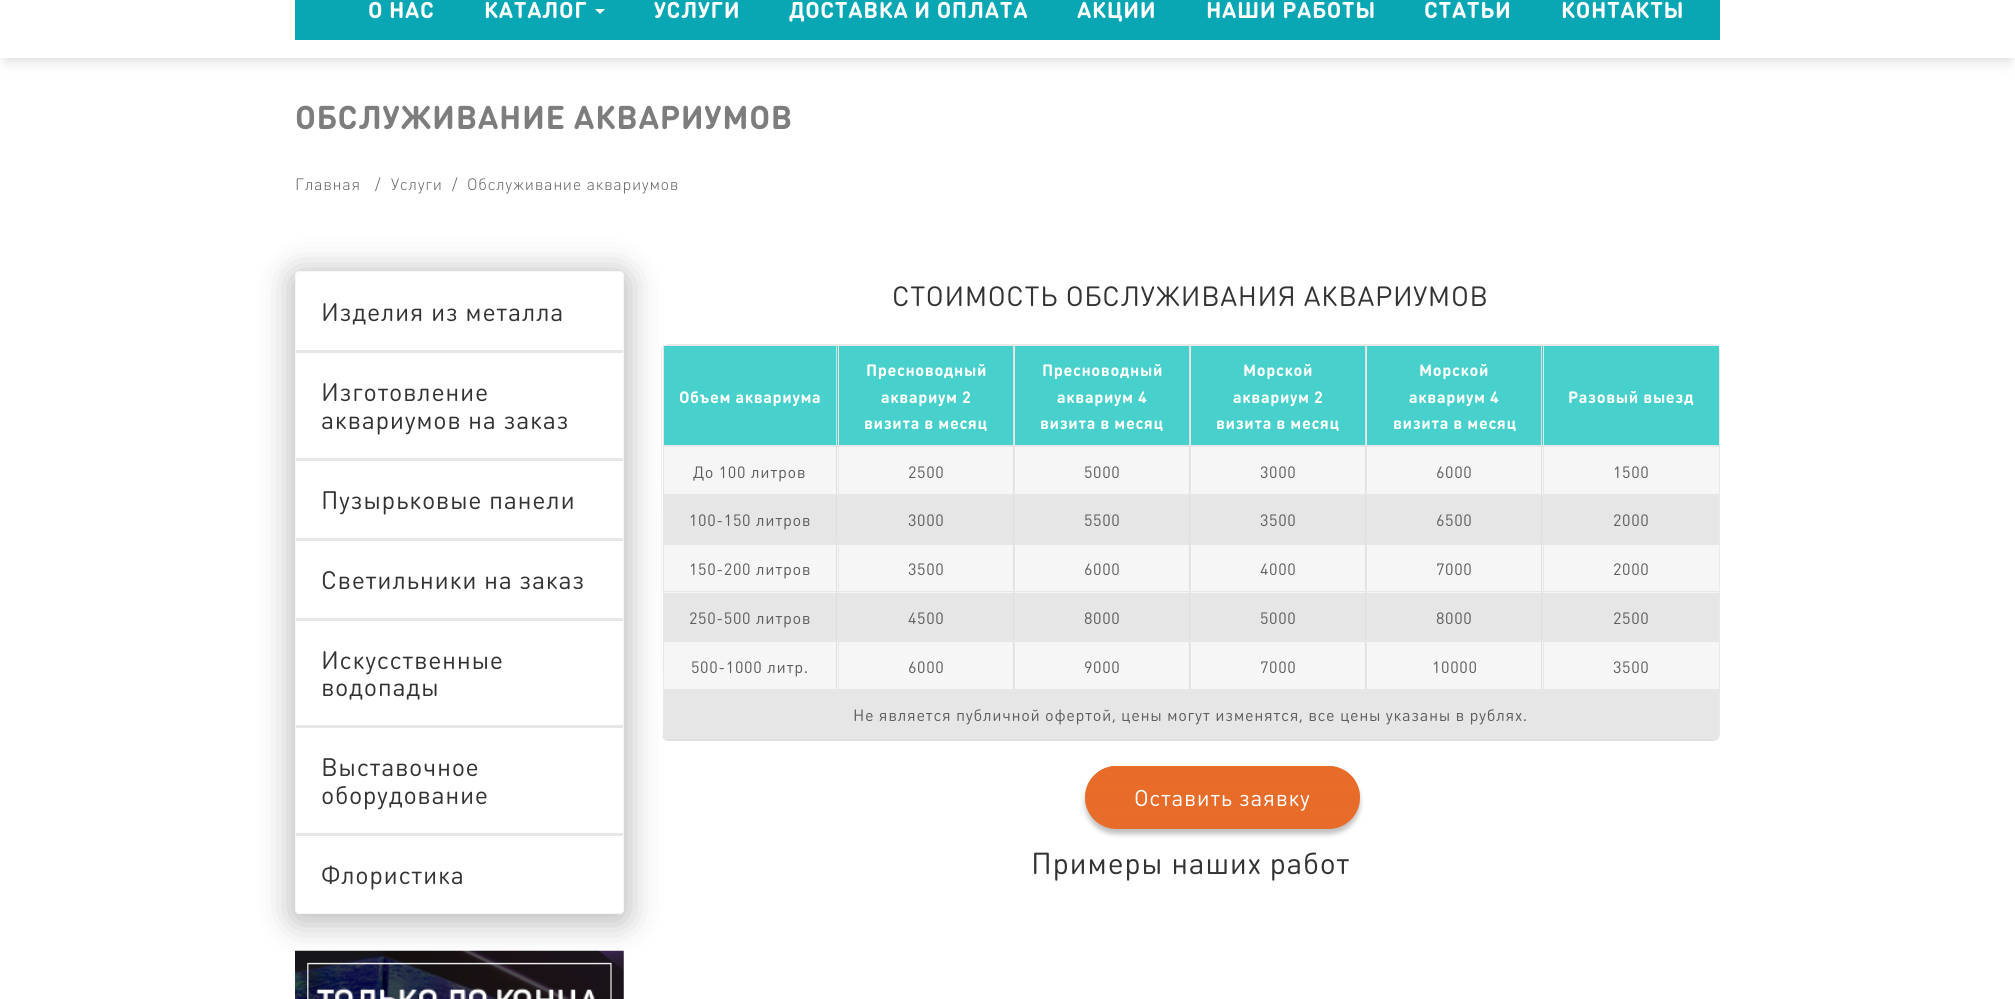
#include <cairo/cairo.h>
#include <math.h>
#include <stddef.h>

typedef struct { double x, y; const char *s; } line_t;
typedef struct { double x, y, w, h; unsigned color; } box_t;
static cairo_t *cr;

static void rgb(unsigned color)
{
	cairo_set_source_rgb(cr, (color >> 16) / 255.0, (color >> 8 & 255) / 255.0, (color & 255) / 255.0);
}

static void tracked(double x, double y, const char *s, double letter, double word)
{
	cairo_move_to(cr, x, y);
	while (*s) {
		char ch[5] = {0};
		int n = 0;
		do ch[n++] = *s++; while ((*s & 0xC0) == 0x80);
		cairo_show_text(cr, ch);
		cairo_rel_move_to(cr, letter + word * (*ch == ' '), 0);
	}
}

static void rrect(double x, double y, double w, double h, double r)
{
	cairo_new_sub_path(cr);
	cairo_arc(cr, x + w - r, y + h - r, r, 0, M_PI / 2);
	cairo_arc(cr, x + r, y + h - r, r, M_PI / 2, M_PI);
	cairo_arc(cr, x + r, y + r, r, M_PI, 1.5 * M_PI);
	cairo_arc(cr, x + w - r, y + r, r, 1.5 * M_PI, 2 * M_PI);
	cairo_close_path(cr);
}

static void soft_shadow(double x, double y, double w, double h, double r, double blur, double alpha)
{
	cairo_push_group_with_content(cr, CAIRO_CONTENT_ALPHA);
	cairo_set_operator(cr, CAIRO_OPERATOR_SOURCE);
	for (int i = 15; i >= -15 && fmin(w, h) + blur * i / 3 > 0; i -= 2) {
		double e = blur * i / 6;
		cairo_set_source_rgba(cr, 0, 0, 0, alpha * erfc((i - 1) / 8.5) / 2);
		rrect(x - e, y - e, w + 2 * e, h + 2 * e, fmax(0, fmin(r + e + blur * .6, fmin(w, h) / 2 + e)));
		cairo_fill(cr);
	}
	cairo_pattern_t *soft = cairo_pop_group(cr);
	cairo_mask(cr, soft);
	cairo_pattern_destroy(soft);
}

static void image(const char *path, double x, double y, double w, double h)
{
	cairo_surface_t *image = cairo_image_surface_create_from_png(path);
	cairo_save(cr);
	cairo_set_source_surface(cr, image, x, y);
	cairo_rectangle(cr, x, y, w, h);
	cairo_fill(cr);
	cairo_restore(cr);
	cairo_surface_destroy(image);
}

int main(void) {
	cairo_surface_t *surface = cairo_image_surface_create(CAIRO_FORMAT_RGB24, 2015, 999);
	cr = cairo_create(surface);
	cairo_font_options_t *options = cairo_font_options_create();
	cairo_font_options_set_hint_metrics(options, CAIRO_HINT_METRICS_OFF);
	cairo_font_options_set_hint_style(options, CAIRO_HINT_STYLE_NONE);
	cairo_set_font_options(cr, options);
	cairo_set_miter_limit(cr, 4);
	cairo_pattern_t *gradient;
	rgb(0xffffff);
	cairo_paint(cr);
	rgb(0x000000);
	soft_shadow(6, -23, 2003, 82, 0, 7.5, 0.18);
	rgb(0xffffff);
	cairo_rectangle(cr, 0, 0, 2015, 58);
	cairo_fill(cr);
	rgb(0x09a7b4);
	cairo_rectangle(cr, 295, 0, 1425, 40);
	cairo_fill(cr);
	rgb(0xffffff);
	cairo_new_path(cr);
	cairo_move_to(cr, 595, 9);
	cairo_line_to(cr, 605, 9);
	cairo_line_to(cr, 600, 14);
	cairo_close_path(cr);
	cairo_fill(cr);
	rgb(0x000000);
	soft_shadow(289, 270, 341, 655, 10, 15.5, 0.25);
	rgb(0xffffff);
	rrect(295.5, 271.5, 328, 642, 3.5);
	cairo_fill_preserve(cr);
	rgb(0xf6f6f6);
	cairo_set_line_width(cr, 1);
	cairo_stroke(cr);
	{
		static const box_t items[] = {
			{296, 350, 327, 3, 0xe7e7e7},
			{296, 458, 327, 3, 0xe7e7e7},
			{296, 538, 327, 3, 0xe7e7e7},
			{296, 618, 327, 3, 0xe7e7e7},
			{296, 725, 327, 3, 0xe7e7e7},
			{296, 833, 327, 3, 0xe7e7e7},
		};
		for (size_t i = 0; i < sizeof items / sizeof *items; i++) {
			rgb(items[i].color);
			cairo_rectangle(cr, items[i].x, items[i].y, items[i].w, items[i].h);
			cairo_fill(cr);
		}
	}
	image("img/1.png", 295, 950, 329, 49);
	rgb(0xfcfcfc);
	cairo_new_path(cr);
	cairo_move_to(cr, 669, 345);
	cairo_line_to(cr, 1712, 345);
	cairo_curve_to(cr, 1716, 345, 1719, 348, 1719, 351);
	cairo_line_to(cr, 1719, 734);
	cairo_curve_to(cr, 1719, 737, 1716, 739, 1712, 739);
	cairo_line_to(cr, 669, 739);
	cairo_curve_to(cr, 665, 739, 662, 737, 662, 734);
	cairo_line_to(cr, 662, 351);
	cairo_curve_to(cr, 662, 348, 665, 345, 669, 345);
	cairo_close_path(cr);
	cairo_fill(cr);
	rgb(0xe9e9e9);
	cairo_new_path(cr);
	cairo_move_to(cr, 669, 344);
	cairo_curve_to(cr, 667, 344, 665, 345, 664, 346);
	cairo_line_to(cr, 664, 347);
	cairo_curve_to(cr, 665, 346, 667, 345, 669, 345);
	cairo_line_to(cr, 1712, 345);
	cairo_curve_to(cr, 1714, 345, 1716, 346, 1717, 347);
	cairo_line_to(cr, 1718, 346);
	cairo_curve_to(cr, 1716, 345, 1714, 344, 1712, 344);
	cairo_close_path(cr);
	cairo_fill(cr);
	cairo_new_path(cr);
	cairo_move_to(cr, 1718, 346);
	cairo_curve_to(cr, 1719, 347, 1720, 349, 1720, 351);
	cairo_line_to(cr, 1720, 734);
	cairo_curve_to(cr, 1720, 736, 1719, 737, 1719, 738);
	cairo_line_to(cr, 1718, 737);
	cairo_curve_to(cr, 1719, 736, 1719, 735, 1719, 734);
	cairo_line_to(cr, 1719, 351);
	cairo_curve_to(cr, 1719, 349, 1718, 348, 1717, 347);
	cairo_close_path(cr);
	cairo_fill(cr);
	rgb(0xdfdfdf);
	cairo_new_path(cr);
	cairo_move_to(cr, 1719, 738);
	cairo_curve_to(cr, 1717, 740, 1715, 741, 1712, 741);
	cairo_line_to(cr, 669, 741);
	cairo_curve_to(cr, 667, 741, 664, 740, 663, 738);
	cairo_line_to(cr, 663, 737);
	cairo_curve_to(cr, 665, 738, 667, 739, 669, 739);
	cairo_line_to(cr, 1712, 739);
	cairo_curve_to(cr, 1714, 739, 1717, 738, 1718, 737);
	cairo_close_path(cr);
	cairo_fill(cr);
	rgb(0xe9e9e9);
	cairo_new_path(cr);
	cairo_move_to(cr, 661, 349);
	cairo_line_to(cr, 664, 346);
	cairo_line_to(cr, 664, 347);
	cairo_curve_to(cr, 663, 348, 662, 349, 662, 351);
	cairo_line_to(cr, 662, 734);
	cairo_curve_to(cr, 662, 735, 662, 736, 663, 737);
	cairo_line_to(cr, 663, 738);
	cairo_line_to(cr, 662, 736);
	cairo_close_path(cr);
	cairo_fill(cr);
	{
		static const box_t items[] = {
			{664, 346, 1055, 99, 0x48d1cc},
			{663, 345, 1056, 1, 0xe8e7e7},
			{836, 345, 1, 101, 0xdfdfdf},
			{663, 445, 175, 2, 0xe8e7e7},
			{663, 345, 1, 101, 0xe8e7e7},
			{1013, 345, 1, 101, 0xdfdfdf},
			{838, 445, 176, 2, 0xe8e7e7},
			{838, 345, 1, 101, 0xe8e7e7},
			{1189, 345, 1, 101, 0xdfdfdf},
			{1014, 445, 176, 2, 0xe8e7e7},
			{1014, 345, 1, 101, 0xe8e7e7},
			{1365, 345, 1, 101, 0xdfdfdf},
			{1190, 445, 176, 2, 0xe8e7e7},
			{1190, 345, 1, 101, 0xe8e7e7},
			{1541, 345, 1, 101, 0xdfdfdf},
			{1366, 445, 353, 1, 0xe8e7e7},
			{1366, 345, 1, 101, 0xe8e7e7},
			{1543, 345, 1, 101, 0xe8e7e7},
			{664, 447, 1055, 47, 0xf6f6f6},
			{836, 446, 1, 49, 0xdfdfdf},
			{663, 494, 175, 2, 0xe8e7e7},
			{663, 446, 1, 49, 0xe8e7e7},
			{1013, 446, 1, 49, 0xdfdfdf},
			{838, 494, 176, 2, 0xe8e7e7},
			{838, 446, 1, 49, 0xe8e7e7},
			{1189, 446, 1, 49, 0xdfdfdf},
			{1014, 494, 176, 2, 0xe8e7e7},
			{1014, 446, 1, 49, 0xe8e7e7},
			{1365, 446, 1, 49, 0xdfdfdf},
			{1190, 494, 176, 2, 0xe8e7e7},
			{1190, 446, 1, 49, 0xe8e7e7},
			{1366, 446, 353, 1, 0xe8e7e7},
			{1541, 446, 1, 49, 0xdfdfdf},
			{1366, 494, 353, 1, 0xe8e7e7},
			{1366, 446, 1, 49, 0xe8e7e7},
			{1543, 446, 1, 49, 0xe8e7e7},
			{664, 496, 1055, 47, 0xe6e6e6},
			{836, 495, 1, 49, 0xdfdfdf},
			{663, 543, 175, 2, 0xe8e7e7},
			{663, 495, 1, 49, 0xe8e7e7},
			{1013, 495, 1, 49, 0xdfdfdf},
			{838, 543, 176, 2, 0xe8e7e7},
			{1189, 495, 1, 49, 0xdfdfdf},
			{1014, 543, 176, 2, 0xe8e7e7},
			{1365, 495, 1, 49, 0xdfdfdf},
			{1190, 543, 176, 2, 0xe8e7e7},
			{1366, 495, 353, 1, 0xe8e7e7},
			{1541, 495, 1, 49, 0xdfdfdf},
			{1366, 543, 353, 1, 0xe8e7e7},
			{664, 545, 1055, 48, 0xf6f6f6},
			{836, 544, 1, 49, 0xdfdfdf},
			{663, 591, 175, 1, 0xe8e7e7},
			{663, 544, 1, 49, 0xe8e7e7},
			{1013, 544, 1, 49, 0xdfdfdf},
			{838, 591, 176, 1, 0xe8e7e7},
			{838, 544, 1, 49, 0xe8e7e7},
			{1189, 544, 1, 49, 0xdfdfdf},
			{1014, 591, 176, 1, 0xe8e7e7},
			{1014, 544, 1, 49, 0xe8e7e7},
			{1365, 544, 1, 49, 0xdfdfdf},
			{1190, 591, 176, 1, 0xe8e7e7},
			{1190, 544, 1, 49, 0xe8e7e7},
			{1366, 544, 353, 1, 0xe8e7e7},
			{1541, 544, 1, 49, 0xdfdfdf},
			{1366, 591, 353, 1, 0xe8e7e7},
			{1366, 544, 1, 49, 0xe8e7e7},
			{1543, 544, 1, 49, 0xe8e7e7},
			{664, 594, 1055, 46, 0xe6e6e6},
			{663, 593, 1056, 1, 0xe8e7e7},
			{836, 593, 1, 48, 0xdfdfdf},
			{663, 640, 175, 2, 0xe8e7e7},
			{663, 593, 1, 48, 0xe8e7e7},
			{1013, 593, 1, 48, 0xdfdfdf},
			{838, 640, 176, 2, 0xe8e7e7},
			{1189, 593, 1, 48, 0xdfdfdf},
			{1014, 640, 176, 2, 0xe8e7e7},
			{1365, 593, 1, 48, 0xdfdfdf},
			{1190, 640, 176, 2, 0xe8e7e7},
			{1541, 593, 1, 48, 0xdfdfdf},
			{1366, 640, 353, 1, 0xe8e7e7},
			{664, 642, 1055, 47, 0xf6f6f6},
			{836, 641, 1, 49, 0xdfdfdf},
			{663, 689, 175, 1, 0xe8e7e7},
			{663, 641, 1, 49, 0xe8e7e7},
			{1013, 641, 1, 49, 0xdfdfdf},
			{838, 689, 176, 1, 0xe8e7e7},
			{838, 641, 1, 49, 0xe8e7e7},
			{1189, 641, 1, 49, 0xdfdfdf},
			{1014, 689, 176, 1, 0xe8e7e7},
			{1014, 641, 1, 49, 0xe8e7e7},
			{1365, 641, 1, 49, 0xdfdfdf},
			{1190, 689, 176, 1, 0xe8e7e7},
			{1190, 641, 1, 49, 0xe8e7e7},
			{1366, 641, 353, 1, 0xe8e7e7},
			{1541, 641, 1, 49, 0xdfdfdf},
			{1366, 689, 353, 1, 0xe8e7e7},
			{1366, 641, 1, 49, 0xe8e7e7},
			{1543, 641, 1, 49, 0xe8e7e7},
			{664, 691, 1055, 47, 0xe6e6e6},
			{663, 690, 1056, 1, 0xe8e7e7},
			{663, 738, 1056, 1, 0xe8e7e7},
			{663, 690, 1, 49, 0xe8e7e7},
		};
		for (size_t i = 0; i < sizeof items / sizeof *items; i++) {
			rgb(items[i].color);
			cairo_rectangle(cr, items[i].x, items[i].y, items[i].w, items[i].h);
			cairo_fill(cr);
		}
	}
	rgb(0x000000);
	soft_shadow(1085, 771, 275, 63, 31.5, 2.5, 0.25);
	rgb(0xe86c29);
	rrect(1085, 766, 275, 63, 31.5);
	cairo_fill(cr);
	gradient = cairo_pattern_create_linear(1223, 766, 1223, 829);
	cairo_pattern_add_color_stop_rgba(gradient, 0.03, 0.91, 0.424, 0.161, 1);
	cairo_pattern_add_color_stop_rgba(gradient, 0.94, 0.91, 0.424, 0.161, 0);
	cairo_set_source(cr, gradient);
	cairo_pattern_destroy(gradient);
	rrect(1085, 766, 275, 63, 31.5);
	cairo_fill(cr);
	cairo_select_font_face(cr, "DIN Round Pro", CAIRO_FONT_SLANT_NORMAL, CAIRO_FONT_WEIGHT_BOLD);
	cairo_set_font_size(cr, 22.5);
	rgb(0xffffff);
	{
		static const line_t items[] = {
			{368, 18, "О НАС"},
			{484, 18, "КАТАЛОГ"},
			{654, 18, "УСЛУГИ"},
			{789, 18, "ДОСТАВКА И ОПЛАТА"},
			{1077, 18, "АКЦИИ"},
			{1206, 18, "НАШИ РАБОТЫ"},
			{1424, 18, "СТАТЬИ"},
			{1561, 18, "КОНТАКТЫ"},
		};
		for (size_t i = 0; i < sizeof items / sizeof *items; i++) {
			tracked(items[i].x, items[i].y, items[i].s, 0.62, 0);
		}
	}
	cairo_set_font_size(cr, 32.5);
	rgb(0x7d7d7d);
	tracked(295, 129, "ОБСЛУЖИВАНИЕ АКВАРИУМОВ", 0.62, 0);
	cairo_select_font_face(cr, "DIN Round Pro Light", CAIRO_FONT_SLANT_NORMAL, CAIRO_FONT_WEIGHT_NORMAL);
	cairo_set_font_size(cr, 16.25);
	rgb(0x5e5e5e);
	{
		static const line_t items[] = {
			{295, 190, "Главная"},
			{375, 190, "/"},
			{391, 190, "Услуги"},
			{452, 190, "/"},
			{467, 190, "Обслуживание аквариумов"},
		};
		for (size_t i = 0; i < sizeof items / sizeof *items; i++) {
			tracked(items[i].x, items[i].y, items[i].s, 0.62, 0);
		}
	}
	cairo_select_font_face(cr, "DIN Round Pro", CAIRO_FONT_SLANT_NORMAL, CAIRO_FONT_WEIGHT_NORMAL);
	cairo_set_font_size(cr, 25);
	rgb(0x333333);
	{
		static const line_t items[] = {
			{321, 321, "Изделия из металла"},
			{321, 401, "Изготовление"},
			{321, 429, "аквариумов на заказ"},
			{321, 509, "Пузырьковые панели"},
			{321, 589, "Светильники на заказ"},
			{321, 669, "Искусственные"},
			{321, 696, "водопады"},
			{321, 776, "Выставочное"},
			{321, 804, "оборудование"},
			{321, 884, "Флористика"},
		};
		for (size_t i = 0; i < sizeof items / sizeof *items; i++) {
			tracked(items[i].x, items[i].y, items[i].s, 0.62, 0);
		}
	}
	cairo_set_font_size(cr, 27.5);
	tracked(892, 306, "СТОИМОСТЬ ОБСЛУЖИВАНИЯ АКВАРИУМОВ", 0.62, 0);
	cairo_select_font_face(cr, "DIN Round Pro", CAIRO_FONT_SLANT_NORMAL, CAIRO_FONT_WEIGHT_BOLD);
	cairo_set_font_size(cr, 16.25);
	rgb(0xffffff);
	{
		static const line_t items[] = {
			{679, 403, "Объем аквариума"},
			{866, 376, "Пресноводный"},
			{881, 403, "аквариум 2"},
			{864, 429, "визита в месяц"},
			{1042, 376, "Пресноводный"},
			{1057, 403, "аквариум 4"},
			{1040, 429, "визита в месяц"},
			{1243, 376, "Морской"},
			{1233, 403, "аквариум 2"},
			{1216, 429, "визита в месяц"},
			{1419, 376, "Морской"},
			{1409, 403, "аквариум 4"},
			{1393, 429, "визита в месяц"},
			{1568, 403, "Разовый выезд"},
		};
		for (size_t i = 0; i < sizeof items / sizeof *items; i++) {
			tracked(items[i].x, items[i].y, items[i].s, 0.62, 0);
		}
	}
	cairo_select_font_face(cr, "DIN Round Pro", CAIRO_FONT_SLANT_NORMAL, CAIRO_FONT_WEIGHT_NORMAL);
	rgb(0x5e5e5e);
	{
		static const line_t items[] = {
			{693, 478, "До 100 литров"},
			{908, 478, "2500"},
			{1084, 478, "5000"},
			{1260, 478, "3000"},
			{1436, 478, "6000"},
			{1613, 478, "1500"},
			{689, 526, "100-150 литров"},
			{908, 526, "3000"},
			{1084, 526, "5500"},
			{1260, 526, "3500"},
			{1436, 526, "6500"},
			{1613, 526, "2000"},
			{689, 575, "150-200 литров"},
			{908, 575, "3500"},
			{1084, 575, "6000"},
			{1260, 575, "4000"},
			{1436, 575, "7000"},
			{1613, 575, "2000"},
			{689, 624, "250-500 литров"},
			{908, 624, "4500"},
			{1084, 624, "8000"},
			{1260, 624, "5000"},
			{1436, 624, "8000"},
			{1613, 624, "2500"},
			{691, 673, "500-1000 литр."},
			{908, 673, "6000"},
			{1084, 673, "9000"},
			{1260, 673, "7000"},
			{1432, 673, "10000"},
			{1613, 673, "3500"},
			{853, 721, "Не является публичной офертой, цены могут изменятся, все цены указаны в рублях."},
		};
		for (size_t i = 0; i < sizeof items / sizeof *items; i++) {
			tracked(items[i].x, items[i].y, items[i].s, 0.62, 0);
		}
	}
	cairo_set_font_size(cr, 22.5);
	rgb(0xffffff);
	tracked(1134, 806, "Оставить заявку", 0.62, 0);
	cairo_set_font_size(cr, 30);
	rgb(0x333333);
	tracked(1031, 874, "Примеры наших работ", 0.62, 0);
	cairo_surface_write_to_png(surface, "page.png");
	cairo_font_options_destroy(options);
	cairo_destroy(cr);
	cairo_surface_destroy(surface);
	return 0;
}
